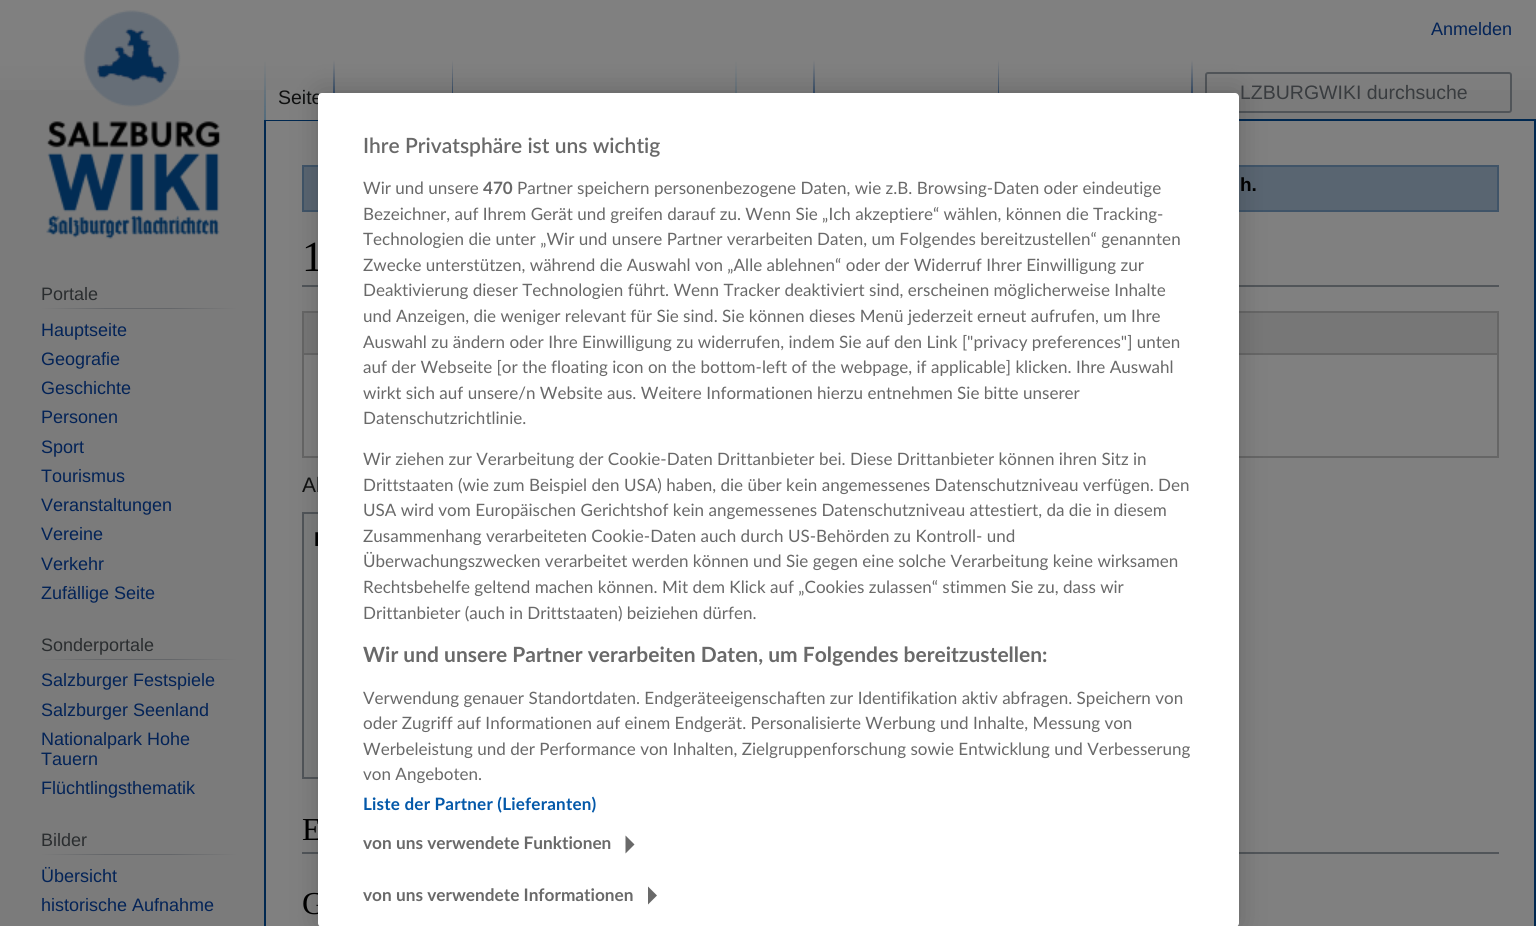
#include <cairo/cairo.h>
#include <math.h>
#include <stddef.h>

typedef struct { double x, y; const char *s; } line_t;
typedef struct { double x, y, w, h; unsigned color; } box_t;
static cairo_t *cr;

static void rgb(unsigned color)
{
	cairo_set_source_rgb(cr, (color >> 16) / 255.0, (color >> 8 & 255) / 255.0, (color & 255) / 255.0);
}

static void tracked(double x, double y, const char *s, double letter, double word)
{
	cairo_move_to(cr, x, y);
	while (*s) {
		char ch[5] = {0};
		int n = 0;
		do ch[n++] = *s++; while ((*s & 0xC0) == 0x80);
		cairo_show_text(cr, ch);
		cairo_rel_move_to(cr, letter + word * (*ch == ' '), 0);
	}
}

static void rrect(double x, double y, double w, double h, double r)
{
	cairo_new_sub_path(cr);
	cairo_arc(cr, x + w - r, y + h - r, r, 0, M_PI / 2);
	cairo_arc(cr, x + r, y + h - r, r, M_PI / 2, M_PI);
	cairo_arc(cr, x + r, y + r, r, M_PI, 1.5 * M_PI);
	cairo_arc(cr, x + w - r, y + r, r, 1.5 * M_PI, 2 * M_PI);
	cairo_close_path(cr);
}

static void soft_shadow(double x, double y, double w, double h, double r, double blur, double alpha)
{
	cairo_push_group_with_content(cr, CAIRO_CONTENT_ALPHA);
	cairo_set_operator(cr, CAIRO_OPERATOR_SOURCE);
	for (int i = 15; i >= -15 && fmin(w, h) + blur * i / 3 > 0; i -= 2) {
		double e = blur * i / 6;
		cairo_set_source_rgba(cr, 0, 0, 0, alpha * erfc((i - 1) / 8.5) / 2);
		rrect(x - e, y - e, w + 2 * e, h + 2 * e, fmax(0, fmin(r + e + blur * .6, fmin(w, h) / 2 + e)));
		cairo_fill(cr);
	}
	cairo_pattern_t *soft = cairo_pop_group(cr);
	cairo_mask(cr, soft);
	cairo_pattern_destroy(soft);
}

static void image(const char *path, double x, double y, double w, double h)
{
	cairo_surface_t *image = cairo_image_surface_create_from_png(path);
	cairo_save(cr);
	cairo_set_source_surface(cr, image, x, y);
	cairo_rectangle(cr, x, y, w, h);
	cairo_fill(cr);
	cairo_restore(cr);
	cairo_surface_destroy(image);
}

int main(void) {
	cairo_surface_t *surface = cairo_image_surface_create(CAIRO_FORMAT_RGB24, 1536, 926);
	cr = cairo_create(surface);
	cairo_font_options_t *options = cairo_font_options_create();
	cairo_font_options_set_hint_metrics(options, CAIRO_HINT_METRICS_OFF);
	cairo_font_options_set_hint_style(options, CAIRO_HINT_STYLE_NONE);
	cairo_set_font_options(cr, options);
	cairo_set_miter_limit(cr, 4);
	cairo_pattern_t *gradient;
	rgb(0x7b7b7b);
	cairo_paint(cr);
	gradient = cairo_pattern_create_linear(768, 0, 768, 120);
	cairo_pattern_add_color_stop_rgba(gradient, 0.5, 0.502, 0.502, 0.502, 1);
	cairo_pattern_add_color_stop_rgba(gradient, 1, 0.482, 0.482, 0.482, 1);
	cairo_set_source(cr, gradient);
	cairo_pattern_destroy(gradient);
	cairo_rectangle(cr, 0, 0, 1536, 90);
	cairo_fill(cr);
	rgb(0x808080);
	cairo_rectangle(cr, 265, 120, 1270, 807);
	cairo_fill_preserve(cr);
	rgb(0x002850);
	cairo_stroke(cr);
	gradient = cairo_pattern_create_linear(265, 60, 265, 120);
	cairo_pattern_add_color_stop_rgba(gradient, 0, 0.329, 0.424, 0.49, 0);
	cairo_pattern_add_color_stop_rgba(gradient, 1, 0.329, 0.424, 0.49, 1);
	cairo_set_source(cr, gradient);
	cairo_pattern_destroy(gradient);
	cairo_rectangle(cr, 264, 60, 2, 60);
	cairo_fill(cr);
	gradient = cairo_pattern_create_linear(452, 60, 452, 120);
	cairo_pattern_add_color_stop_rgba(gradient, 0, 0, 0.157, 0.345, 0);
	cairo_pattern_add_color_stop_rgba(gradient, 1, 0, 0.157, 0.345, 1);
	cairo_set_source(cr, gradient);
	cairo_pattern_destroy(gradient);
	cairo_rectangle(cr, 452, 60, 1, 33);
	cairo_fill(cr);
	rgb(0x808080);
	cairo_rectangle(cr, 266, 90, 67, 30);
	cairo_fill(cr);
	gradient = cairo_pattern_create_linear(334, 60, 334, 120);
	cairo_pattern_add_color_stop_rgba(gradient, 0, 0.502, 0.502, 0.502, 1);
	cairo_pattern_add_color_stop_rgba(gradient, 1, 0, 0.157, 0.345, 1);
	cairo_set_source(cr, gradient);
	cairo_pattern_destroy(gradient);
	cairo_rectangle(cr, 333, 60, 2, 33);
	cairo_fill(cr);
	gradient = cairo_pattern_create_linear(736, 60, 736, 120);
	cairo_pattern_add_color_stop_rgba(gradient, 0, 0.329, 0.424, 0.49, 0);
	cairo_pattern_add_color_stop_rgba(gradient, 1, 0.329, 0.424, 0.49, 1);
	cairo_set_source(cr, gradient);
	cairo_pattern_destroy(gradient);
	cairo_rectangle(cr, 735, 60, 2, 33);
	cairo_fill(cr);
	rgb(0x808080);
	cairo_rectangle(cr, 737, 90, 76, 3);
	cairo_fill(cr);
	gradient = cairo_pattern_create_linear(814, 60, 814, 120);
	cairo_pattern_add_color_stop_rgba(gradient, 0, 0.502, 0.502, 0.502, 1);
	cairo_pattern_add_color_stop_rgba(gradient, 1, 0, 0.157, 0.345, 1);
	cairo_set_source(cr, gradient);
	cairo_pattern_destroy(gradient);
	cairo_rectangle(cr, 813, 60, 2, 33);
	cairo_fill(cr);
	gradient = cairo_pattern_create_linear(998, 60, 998, 120);
	cairo_pattern_add_color_stop_rgba(gradient, 0, 0, 0.157, 0.345, 0);
	cairo_pattern_add_color_stop_rgba(gradient, 1, 0, 0.157, 0.345, 1);
	cairo_set_source(cr, gradient);
	cairo_pattern_destroy(gradient);
	cairo_rectangle(cr, 998, 60, 1, 33);
	cairo_fill(cr);
	gradient = cairo_pattern_create_linear(1192, 60, 1192, 120);
	cairo_pattern_add_color_stop_rgba(gradient, 0, 0, 0.157, 0.345, 0);
	cairo_pattern_add_color_stop_rgba(gradient, 1, 0, 0.157, 0.345, 1);
	cairo_set_source(cr, gradient);
	cairo_pattern_destroy(gradient);
	cairo_rectangle(cr, 1191, 60, 2, 33);
	cairo_fill(cr);
	rrect(1206, 73, 305, 39, 2);
	rgb(0x515559);
	cairo_stroke(cr);
	image("img/1.png", 46, 10, 175, 229);
	gradient = cairo_pattern_create_linear(41, 308, 237, 308);
	cairo_pattern_add_color_stop_rgba(gradient, 0, 0.482, 0.482, 0.482, 1);
	cairo_pattern_add_color_stop_rgba(gradient, 0.33, 0.392, 0.4, 0.412, 1);
	cairo_pattern_add_color_stop_rgba(gradient, 0.66, 0.392, 0.4, 0.412, 1);
	cairo_pattern_add_color_stop_rgba(gradient, 1, 0.482, 0.482, 0.482, 1);
	cairo_set_source(cr, gradient);
	cairo_pattern_destroy(gradient);
	cairo_rectangle(cr, 41, 308, 196, 1);
	cairo_fill(cr);
	gradient = cairo_pattern_create_linear(41, 659, 237, 659);
	cairo_pattern_add_color_stop_rgba(gradient, 0, 0.482, 0.482, 0.482, 1);
	cairo_pattern_add_color_stop_rgba(gradient, 0.33, 0.392, 0.4, 0.412, 1);
	cairo_pattern_add_color_stop_rgba(gradient, 0.66, 0.392, 0.4, 0.412, 1);
	cairo_pattern_add_color_stop_rgba(gradient, 1, 0.482, 0.482, 0.482, 1);
	cairo_set_source(cr, gradient);
	cairo_pattern_destroy(gradient);
	cairo_rectangle(cr, 41, 659, 196, 1);
	cairo_fill(cr);
	gradient = cairo_pattern_create_linear(41, 854, 237, 854);
	cairo_pattern_add_color_stop_rgba(gradient, 0, 0.482, 0.482, 0.482, 1);
	cairo_pattern_add_color_stop_rgba(gradient, 0.33, 0.392, 0.4, 0.412, 1);
	cairo_pattern_add_color_stop_rgba(gradient, 0.66, 0.392, 0.4, 0.412, 1);
	cairo_pattern_add_color_stop_rgba(gradient, 1, 0.482, 0.482, 0.482, 1);
	cairo_set_source(cr, gradient);
	cairo_pattern_destroy(gradient);
	cairo_rectangle(cr, 41, 854, 196, 1);
	cairo_fill(cr);
	rgb(0x596571);
	cairo_rectangle(cr, 303, 166, 1195, 45);
	cairo_fill_preserve(cr);
	rgb(0x405468);
	cairo_stroke(cr);
	{
		static const box_t items[] = {
			{302, 285, 1197, 2, 0x515559},
			{304, 313, 1193, 40, 0x777777},
			{302, 311, 1197, 2, 0x666666},
			{302, 311, 2, 42, 0x666666},
		};
		for (size_t i = 0; i < sizeof items / sizeof *items; i++) {
			rgb(items[i].color);
			cairo_rectangle(cr, items[i].x, items[i].y, items[i].w, items[i].h);
			cairo_fill(cr);
		}
	}
	cairo_rectangle(cr, 303, 354, 1195, 103);
	cairo_stroke(cr);
	rgb(0x7c7d7d);
	cairo_rectangle(cr, 304, 514, 14, 263);
	cairo_fill(cr);
	cairo_rectangle(cr, 303, 513, 298, 265);
	rgb(0x515559);
	cairo_stroke(cr);
	cairo_rectangle(cr, 302, 852, 1197, 2);
	cairo_fill(cr);
	rgb(0x000000);
	soft_shadow(318, 93, 921, 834, 4, 13.5, 0.2);
	rgb(0x666666);
	cairo_rectangle(cr, 1497, 311, 2, 42);
	cairo_fill(cr);
	cairo_select_font_face(cr, "Liberation Sans", CAIRO_FONT_SLANT_NORMAL, CAIRO_FONT_WEIGHT_NORMAL);
	cairo_set_font_size(cr, 18);
	rgb(0x032357);
	cairo_move_to(cr, 1431, 35);
	cairo_show_text(cr, "Anmelden");
	cairo_set_font_size(cr, 19.5);
	rgb(0x101111);
	cairo_move_to(cr, 278, 104);
	cairo_show_text(cr, "Seite");
	rgb(0x393c3f);
	cairo_move_to(cr, 1240, 99);
	cairo_show_text(cr, "LZBURGWIKI durchsuche");
	cairo_set_font_size(cr, 18);
	rgb(0x2a2d2f);
	cairo_move_to(cr, 41, 300);
	cairo_show_text(cr, "Portale");
	rgb(0x032357);
	{
		static const line_t items[] = {
			{41, 336, "Hauptseite"},
			{41, 365, "Geografie"},
			{41, 394, "Geschichte"},
			{41, 423, "Personen"},
			{41, 453, "Sport"},
			{41, 482, "Tourismus"},
			{41, 511, "Veranstaltungen"},
			{41, 540, "Vereine"},
			{41, 570, "Verkehr"},
			{41, 599, "Zufällige Seite"},
		};
		for (size_t i = 0; i < sizeof items / sizeof *items; i++) {
			cairo_move_to(cr, items[i].x, items[i].y);
			cairo_show_text(cr, items[i].s);
		}
	}
	rgb(0x2a2d2f);
	cairo_move_to(cr, 41, 651);
	cairo_show_text(cr, "Sonderportale");
	rgb(0x032357);
	{
		static const line_t items[] = {
			{41, 686, "Salzburger Festspiele"},
			{41, 716, "Salzburger Seenland"},
			{41, 745, "Nationalpark Hohe"},
			{41, 765, "Tauern"},
			{41, 794, "Flüchtlingsthematik"},
		};
		for (size_t i = 0; i < sizeof items / sizeof *items; i++) {
			cairo_move_to(cr, items[i].x, items[i].y);
			cairo_show_text(cr, items[i].s);
		}
	}
	rgb(0x2a2d2f);
	cairo_move_to(cr, 41, 846);
	cairo_show_text(cr, "Bilder");
	rgb(0x032357);
	cairo_move_to(cr, 41, 882);
	cairo_show_text(cr, "Übersicht");
	cairo_move_to(cr, 41, 911);
	cairo_show_text(cr, "historische Aufnahme");
	cairo_select_font_face(cr, "Liberation Sans", CAIRO_FONT_SLANT_NORMAL, CAIRO_FONT_WEIGHT_BOLD);
	cairo_set_font_size(cr, 19);
	rgb(0x000000);
	cairo_move_to(cr, 1240, 191);
	cairo_show_text(cr, "h.");
	cairo_select_font_face(cr, "Liberation Serif", CAIRO_FONT_SLANT_NORMAL, CAIRO_FONT_WEIGHT_NORMAL);
	cairo_set_font_size(cr, 43);
	cairo_move_to(cr, 302, 271);
	cairo_show_text(cr, "1");
	cairo_select_font_face(cr, "Liberation Sans", CAIRO_FONT_SLANT_NORMAL, CAIRO_FONT_WEIGHT_NORMAL);
	cairo_set_font_size(cr, 21);
	rgb(0x101111);
	cairo_move_to(cr, 302, 492);
	cairo_show_text(cr, "Al");
	cairo_select_font_face(cr, "Liberation Sans", CAIRO_FONT_SLANT_NORMAL, CAIRO_FONT_WEIGHT_BOLD);
	cairo_set_font_size(cr, 20);
	rgb(0x000000);
	cairo_move_to(cr, 314, 546);
	cairo_show_text(cr, "I");
	cairo_select_font_face(cr, "Liberation Serif", CAIRO_FONT_SLANT_NORMAL, CAIRO_FONT_WEIGHT_NORMAL);
	cairo_set_font_size(cr, 32);
	cairo_move_to(cr, 302, 840);
	cairo_show_text(cr, "E");
	cairo_move_to(cr, 302, 914);
	cairo_show_text(cr, "G");
	rgb(0xffffff);
	rrect(318, 93, 921, 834, 4);
	cairo_fill(cr);
	rgb(0x696969);
	cairo_new_path(cr);
	cairo_move_to(cr, 648, 904.5);
	cairo_line_to(cr, 648, 886.5);
	cairo_line_to(cr, 657, 895.5);
	cairo_close_path(cr);
	cairo_fill(cr);
	cairo_select_font_face(cr, "Lato", CAIRO_FONT_SLANT_NORMAL, CAIRO_FONT_WEIGHT_BOLD);
	cairo_set_font_size(cr, 17.25);
	cairo_move_to(cr, 363, 901);
	cairo_show_text(cr, "von uns verwendete Informationen");
	cairo_new_path(cr);
	cairo_move_to(cr, 625.5, 853.5);
	cairo_line_to(cr, 625.5, 835.5);
	cairo_line_to(cr, 634.5, 844.5);
	cairo_close_path(cr);
	cairo_fill(cr);
	cairo_move_to(cr, 363, 849);
	cairo_show_text(cr, "von uns verwendete Funktionen");
	cairo_set_font_size(cr, 17.05);
	rgb(0x0358a9);
	tracked(363, 810, "Liste der Partner (Lieferanten)", 0.2, 0);
	cairo_select_font_face(cr, "Lato", CAIRO_FONT_SLANT_NORMAL, CAIRO_FONT_WEIGHT_NORMAL);
	rgb(0x696969);
	{
		static const line_t items[] = {
			{363, 780, "von Angeboten."},
			{363, 755, "Werbeleistung und der Performance von Inhalten, Zielgruppenforschung sowie Entwicklung und Verbesserung"},
			{363, 729, "oder Zugriff auf Informationen auf einem Endgerät. Personalisierte Werbung und Inhalte, Messung von"},
			{363, 704, "Verwendung genauer Standortdaten. Endgeräteeigenschaften zur Identifikation aktiv abfragen. Speichern von"},
		};
		for (size_t i = 0; i < sizeof items / sizeof *items; i++) {
			cairo_move_to(cr, items[i].x, items[i].y);
			cairo_show_text(cr, items[i].s);
		}
	}
	cairo_select_font_face(cr, "Lato", CAIRO_FONT_SLANT_NORMAL, CAIRO_FONT_WEIGHT_BOLD);
	cairo_set_font_size(cr, 21);
	cairo_move_to(cr, 363, 662);
	cairo_show_text(cr, "Wir und unsere Partner verarbeiten Daten, um Folgendes bereitzustellen:");
	cairo_select_font_face(cr, "Lato", CAIRO_FONT_SLANT_NORMAL, CAIRO_FONT_WEIGHT_NORMAL);
	cairo_set_font_size(cr, 17.05);
	{
		static const line_t items[] = {
			{363, 619, "Drittanbieter (auch in Drittstaaten) beiziehen dürfen."},
			{363, 593, "Rechtsbehelfe geltend machen können. Mit dem Klick auf „Cookies zulassen“ stimmen Sie zu, dass wir"},
			{363, 567, "Überwachungszwecken verarbeitet werden können und Sie gegen eine solche Verarbeitung keine wirksamen"},
			{363, 542, "Zusammenhang verarbeiteten Cookie-Daten auch durch US-Behörden zu Kontroll- und"},
			{363, 516, "USA wird vom Europäischen Gerichtshof kein angemessenes Datenschutzniveau attestiert, da die in diesem"},
			{363, 491, "Drittstaaten (wie zum Beispiel den USA) haben, die über kein angemessenes Datenschutzniveau verfügen. Den"},
			{363, 465, "Wir ziehen zur Verarbeitung der Cookie-Daten Drittanbieter bei. Diese Drittanbieter können ihren Sitz in"},
			{363, 424, "Datenschutzrichtlinie."},
			{363, 399, "wirkt sich auf unsere/n Website aus. Weitere Informationen hierzu entnehmen Sie bitte unserer"},
			{363, 373, "auf der Webseite [or the floating icon on the bottom-left of the webpage, if applicable] klicken. Ihre Auswahl"},
			{363, 348, "Auswahl zu ändern oder Ihre Einwilligung zu widerrufen, indem Sie auf den Link [\"privacy preferences\"] unten"},
			{363, 322, "und Anzeigen, die weniger relevant für Sie sind. Sie können dieses Menü jederzeit erneut aufrufen, um Ihre"},
			{363, 296, "Deaktivierung dieser Technologien führt. Wenn Tracker deaktiviert sind, erscheinen möglicherweise Inhalte"},
			{363, 271, "Zwecke unterstützen, während die Auswahl von „Alle ablehnen“ oder der Widerruf Ihrer Einwilligung zur"},
			{363, 245, "Technologien die unter „Wir und unsere Partner verarbeiten Daten, um Folgendes bereitzustellen“ genannten"},
			{363, 220, "Bezeichner, auf Ihrem Gerät und greifen darauf zu. Wenn Sie „Ich akzeptiere“ wählen, können die Tracking-"},
			{517, 194, "Partner speichern personenbezogene Daten, wie z.B. Browsing-Daten oder eindeutige"},
		};
		for (size_t i = 0; i < sizeof items / sizeof *items; i++) {
			cairo_move_to(cr, items[i].x, items[i].y);
			cairo_show_text(cr, items[i].s);
		}
	}
	cairo_select_font_face(cr, "Lato", CAIRO_FONT_SLANT_NORMAL, CAIRO_FONT_WEIGHT_BOLD);
	cairo_move_to(cr, 483, 194);
	cairo_show_text(cr, "470");
	cairo_select_font_face(cr, "Lato", CAIRO_FONT_SLANT_NORMAL, CAIRO_FONT_WEIGHT_NORMAL);
	cairo_move_to(cr, 363, 194);
	cairo_show_text(cr, "Wir und unsere");
	cairo_select_font_face(cr, "Lato SemiBold", CAIRO_FONT_SLANT_NORMAL, CAIRO_FONT_WEIGHT_NORMAL);
	cairo_set_font_size(cr, 21);
	cairo_move_to(cr, 363, 153);
	cairo_show_text(cr, "Ihre Privatsphäre ist uns wichtig");
	cairo_surface_write_to_png(surface, "page.png");
	cairo_font_options_destroy(options);
	cairo_destroy(cr);
	cairo_surface_destroy(surface);
	return 0;
}
